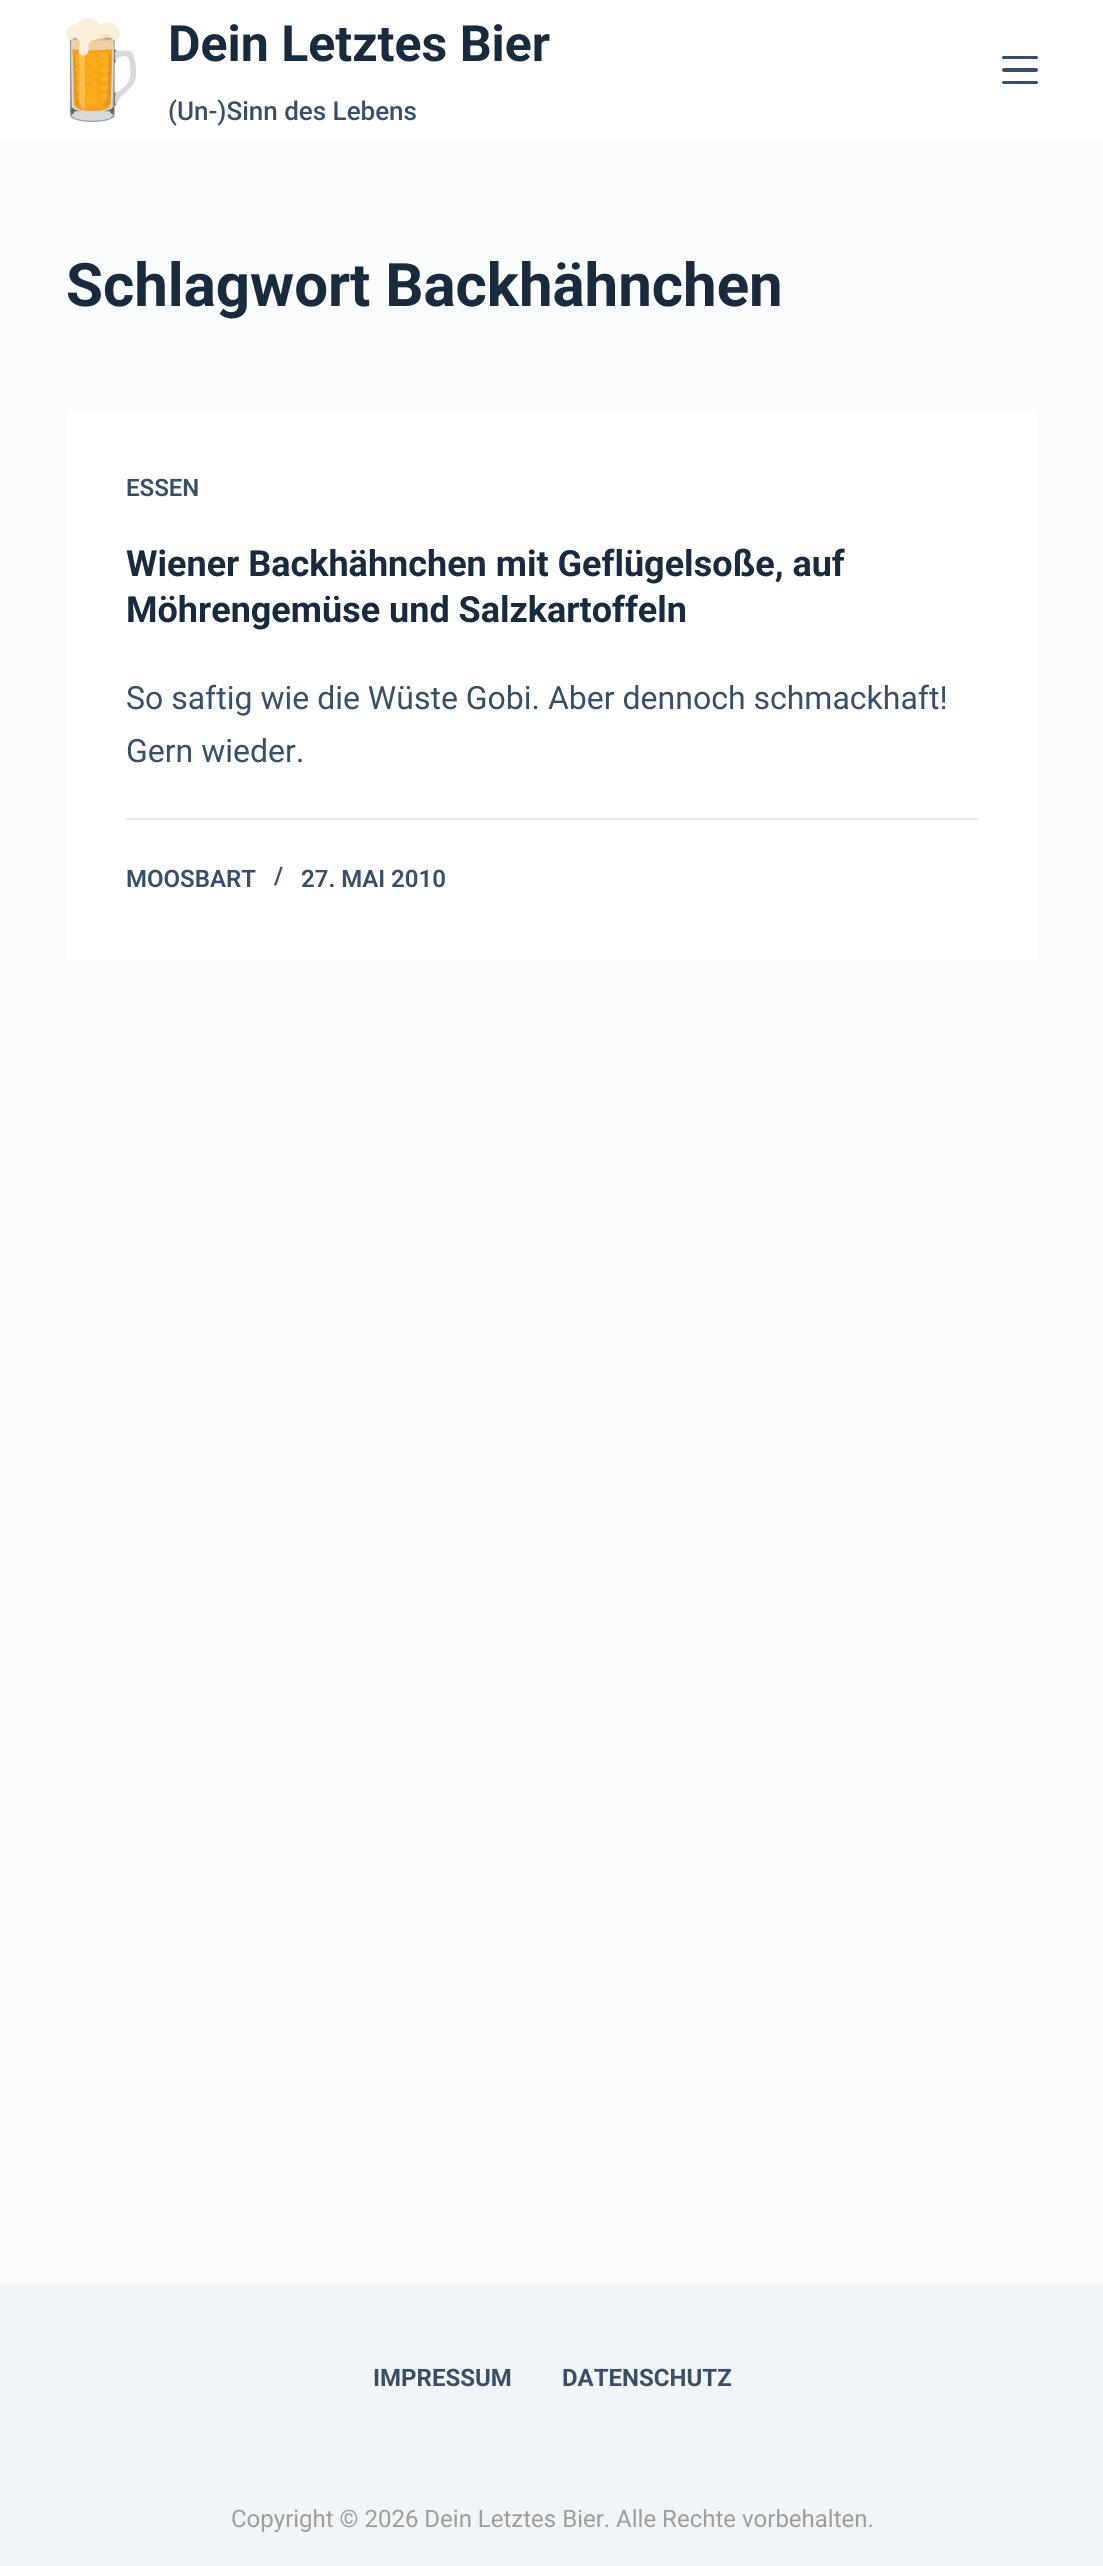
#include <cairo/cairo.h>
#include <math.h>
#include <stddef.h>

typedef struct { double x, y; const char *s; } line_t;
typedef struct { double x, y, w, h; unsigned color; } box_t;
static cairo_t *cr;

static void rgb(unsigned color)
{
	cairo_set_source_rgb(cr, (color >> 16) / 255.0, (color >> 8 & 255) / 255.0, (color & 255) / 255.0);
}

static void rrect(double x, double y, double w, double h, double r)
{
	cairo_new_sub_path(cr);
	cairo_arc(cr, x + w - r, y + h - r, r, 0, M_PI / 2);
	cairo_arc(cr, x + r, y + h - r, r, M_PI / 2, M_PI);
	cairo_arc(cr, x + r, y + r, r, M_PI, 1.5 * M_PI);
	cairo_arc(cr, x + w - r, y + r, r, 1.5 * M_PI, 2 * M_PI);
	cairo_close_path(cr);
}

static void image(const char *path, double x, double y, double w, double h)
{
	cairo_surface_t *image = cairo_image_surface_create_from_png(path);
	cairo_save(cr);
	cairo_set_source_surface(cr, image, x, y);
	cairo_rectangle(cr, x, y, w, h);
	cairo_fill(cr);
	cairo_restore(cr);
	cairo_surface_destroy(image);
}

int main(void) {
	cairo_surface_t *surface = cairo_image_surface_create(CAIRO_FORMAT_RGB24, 1103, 2566);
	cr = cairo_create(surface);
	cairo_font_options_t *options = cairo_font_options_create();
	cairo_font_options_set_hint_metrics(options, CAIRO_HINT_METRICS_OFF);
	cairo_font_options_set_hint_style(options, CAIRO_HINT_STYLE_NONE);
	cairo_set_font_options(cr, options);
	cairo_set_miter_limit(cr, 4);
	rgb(0xfafbfc);
	cairo_paint(cr);
	rgb(0xffffff);
	cairo_rectangle(cr, 0, 0, 1103, 140);
	cairo_fill(cr);
	image("img/1.png", 66, 18, 70, 104);
	rgb(0x3a4f66);
	rrect(1002, 56, 36, 3, 1.5);
	cairo_fill(cr);
	rrect(1002, 68, 36, 4, 2);
	cairo_fill(cr);
	rrect(1002, 81, 36, 3, 1.5);
	cairo_fill(cr);
	{
		static const box_t items[] = {
			{66, 410, 972, 550, 0xffffff},
			{126, 818, 852, 2, 0xe6eaef},
			{0, 2284, 1103, 282, 0xf2f5f7},
		};
		for (size_t i = 0; i < sizeof items / sizeof *items; i++) {
			rgb(items[i].color);
			cairo_rectangle(cr, items[i].x, items[i].y, items[i].w, items[i].h);
			cairo_fill(cr);
		}
	}
	cairo_select_font_face(cr, "Roboto", CAIRO_FONT_SLANT_NORMAL, CAIRO_FONT_WEIGHT_BOLD);
	cairo_set_font_size(cr, 50);
	rgb(0x192a3d);
	cairo_move_to(cr, 168, 61);
	cairo_show_text(cr, "Dein Letztes Bier");
	cairo_select_font_face(cr, "Roboto Medium", CAIRO_FONT_SLANT_NORMAL, CAIRO_FONT_WEIGHT_NORMAL);
	cairo_set_font_size(cr, 26);
	rgb(0x3a4f66);
	cairo_move_to(cr, 168, 120);
	cairo_show_text(cr, "(Un-)Sinn des Lebens");
	cairo_select_font_face(cr, "Roboto", CAIRO_FONT_SLANT_NORMAL, CAIRO_FONT_WEIGHT_BOLD);
	cairo_set_font_size(cr, 60);
	rgb(0x192a3d);
	cairo_move_to(cr, 66, 306);
	cairo_show_text(cr, "Schlagwort Backhähnchen");
	cairo_select_font_face(cr, "Roboto SemiBold", CAIRO_FONT_SLANT_NORMAL, CAIRO_FONT_WEIGHT_NORMAL);
	cairo_set_font_size(cr, 24);
	rgb(0x3a4f66);
	cairo_move_to(cr, 126, 496);
	cairo_show_text(cr, "ESSEN");
	cairo_select_font_face(cr, "Roboto", CAIRO_FONT_SLANT_NORMAL, CAIRO_FONT_WEIGHT_BOLD);
	cairo_set_font_size(cr, 36);
	rgb(0x192a3d);
	cairo_move_to(cr, 126, 576);
	cairo_show_text(cr, "Wiener Backhähnchen mit Geflügelsoße, auf");
	cairo_move_to(cr, 126, 622);
	cairo_show_text(cr, "Möhrengemüse und Salzkartoffeln");
	cairo_select_font_face(cr, "Roboto", CAIRO_FONT_SLANT_NORMAL, CAIRO_FONT_WEIGHT_NORMAL);
	cairo_set_font_size(cr, 32);
	rgb(0x3a4f66);
	cairo_move_to(cr, 126, 709);
	cairo_show_text(cr, "So saftig wie die Wüste Gobi. Aber dennoch schmackhaft!");
	cairo_move_to(cr, 126, 762);
	cairo_show_text(cr, "Gern wieder.");
	cairo_select_font_face(cr, "Roboto SemiBold", CAIRO_FONT_SLANT_NORMAL, CAIRO_FONT_WEIGHT_NORMAL);
	cairo_set_font_size(cr, 24);
	{
		static const line_t items[] = {
			{126, 887, "MOOSBART"},
			{274, 884, "/"},
			{301, 887, "27. MAI 2010"},
		};
		for (size_t i = 0; i < sizeof items / sizeof *items; i++) {
			cairo_move_to(cr, items[i].x, items[i].y);
			cairo_show_text(cr, items[i].s);
		}
	}
	cairo_select_font_face(cr, "Roboto", CAIRO_FONT_SLANT_NORMAL, CAIRO_FONT_WEIGHT_BOLD);
	cairo_move_to(cr, 373, 2386);
	cairo_show_text(cr, "IMPRESSUM");
	cairo_move_to(cr, 562, 2386);
	cairo_show_text(cr, "DATENSCHUTZ");
	cairo_select_font_face(cr, "Roboto", CAIRO_FONT_SLANT_NORMAL, CAIRO_FONT_WEIGHT_NORMAL);
	rgb(0x9b9d9e);
	cairo_move_to(cr, 231, 2527);
	cairo_show_text(cr, "Copyright © 2026 Dein Letztes Bier. Alle Rechte vorbehalten.");
	cairo_surface_write_to_png(surface, "page.png");
	cairo_font_options_destroy(options);
	cairo_destroy(cr);
	cairo_surface_destroy(surface);
	return 0;
}
